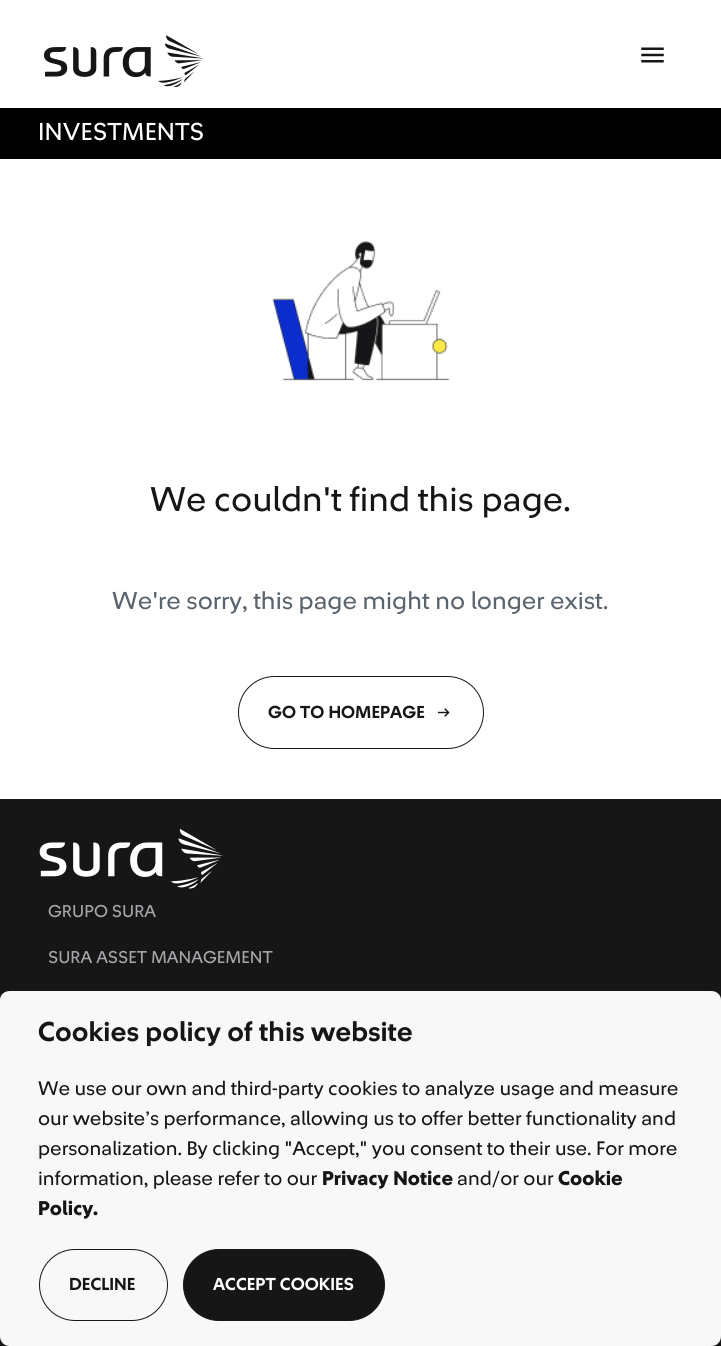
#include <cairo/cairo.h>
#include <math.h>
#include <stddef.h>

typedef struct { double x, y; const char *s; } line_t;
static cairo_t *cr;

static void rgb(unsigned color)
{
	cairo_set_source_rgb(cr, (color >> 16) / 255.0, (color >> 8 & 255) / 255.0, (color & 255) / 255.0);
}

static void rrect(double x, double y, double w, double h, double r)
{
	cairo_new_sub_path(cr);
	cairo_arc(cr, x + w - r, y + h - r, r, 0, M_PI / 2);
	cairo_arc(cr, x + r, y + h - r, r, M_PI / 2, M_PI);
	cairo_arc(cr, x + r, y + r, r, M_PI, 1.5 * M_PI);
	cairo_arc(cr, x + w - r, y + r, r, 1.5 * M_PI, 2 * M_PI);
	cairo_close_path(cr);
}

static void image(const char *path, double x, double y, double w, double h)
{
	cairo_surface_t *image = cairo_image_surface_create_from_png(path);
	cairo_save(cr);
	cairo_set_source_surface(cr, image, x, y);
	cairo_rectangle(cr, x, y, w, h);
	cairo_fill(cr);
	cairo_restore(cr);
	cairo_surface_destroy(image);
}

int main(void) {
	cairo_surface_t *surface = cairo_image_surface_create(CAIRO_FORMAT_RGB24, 721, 1346);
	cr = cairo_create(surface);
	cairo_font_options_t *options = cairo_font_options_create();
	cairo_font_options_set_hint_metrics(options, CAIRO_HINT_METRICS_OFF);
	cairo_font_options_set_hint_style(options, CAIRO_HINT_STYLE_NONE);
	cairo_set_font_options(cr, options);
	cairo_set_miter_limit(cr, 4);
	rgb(0xffffff);
	cairo_paint(cr);
	image("img/1.png", 44, 35, 160, 52);
	image("img/2.png", 641, 47, 23, 16);
	rgb(0x000000);
	cairo_rectangle(cr, 0, 108, 721, 51);
	cairo_fill(cr);
	image("img/3.png", 272, 241, 178, 140);
	rrect(238.5, 676.5, 245, 72, 36);
	rgb(0x161617);
	cairo_set_line_width(cr, 1);
	cairo_stroke(cr);
	image("img/4.png", 437, 708, 13, 9);
	cairo_rectangle(cr, 0, 799, 721, 547);
	cairo_fill(cr);
	image("img/5.png", 39, 829, 184, 60);
	rgb(0xf8f8f8);
	cairo_new_path(cr);
	cairo_move_to(cr, 10, 991);
	cairo_line_to(cr, 711, 991);
	cairo_curve_to(cr, 717, 991, 721, 995, 721, 1000);
	cairo_line_to(cr, 721, 1336);
	cairo_curve_to(cr, 721, 1342, 717, 1346, 711, 1346);
	cairo_line_to(cr, 10, 1346);
	cairo_curve_to(cr, 4, 1346, 0, 1342, 0, 1336);
	cairo_line_to(cr, 0, 1000);
	cairo_curve_to(cr, 0, 995, 4, 991, 10, 991);
	cairo_close_path(cr);
	cairo_fill(cr);
	rrect(39.5, 1249.5, 128, 71, 35.5);
	rgb(0x161617);
	cairo_stroke(cr);
	rrect(183.5, 1249.5, 201, 71, 35.5);
	cairo_fill_preserve(cr);
	cairo_stroke(cr);
	cairo_select_font_face(cr, "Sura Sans", CAIRO_FONT_SLANT_NORMAL, CAIRO_FONT_WEIGHT_NORMAL);
	cairo_set_font_size(cr, 25);
	rgb(0xffffff);
	cairo_move_to(cr, 38, 140);
	cairo_show_text(cr, "INVESTMENTS");
	cairo_set_font_size(cr, 35);
	rgb(0x161617);
	cairo_move_to(cr, 150, 511);
	cairo_show_text(cr, "We couldn't find this page.");
	cairo_set_font_size(cr, 25);
	rgb(0x5a646e);
	cairo_move_to(cr, 112, 609);
	cairo_show_text(cr, "We're sorry, this page might no longer exist.");
	cairo_select_font_face(cr, "Sura Sans", CAIRO_FONT_SLANT_NORMAL, CAIRO_FONT_WEIGHT_BOLD);
	cairo_set_font_size(cr, 17.5);
	rgb(0x161617);
	cairo_move_to(cr, 268, 718);
	cairo_show_text(cr, "GO TO HOMEPAGE");
	cairo_select_font_face(cr, "Sura Sans", CAIRO_FONT_SLANT_NORMAL, CAIRO_FONT_WEIGHT_NORMAL);
	rgb(0xa7a6ab);
	cairo_move_to(cr, 48, 917);
	cairo_show_text(cr, "GRUPO SURA");
	cairo_move_to(cr, 48, 963);
	cairo_show_text(cr, "SURA ASSET MANAGEMENT");
	cairo_select_font_face(cr, "Sura Sans", CAIRO_FONT_SLANT_NORMAL, CAIRO_FONT_WEIGHT_BOLD);
	cairo_set_font_size(cr, 27.5);
	rgb(0x161617);
	cairo_move_to(cr, 38, 1041);
	cairo_show_text(cr, "Cookies policy of this website");
	cairo_select_font_face(cr, "Sura Sans", CAIRO_FONT_SLANT_NORMAL, CAIRO_FONT_WEIGHT_NORMAL);
	cairo_set_font_size(cr, 20);
	{
		static const line_t items[] = {
			{38, 1095, "We use our own and third-party cookies to analyze usage and measure"},
			{38, 1125, "our website’s performance, allowing us to offer better functionality and"},
			{38, 1155, "personalization. By clicking \"Accept,\" you consent to their use. For more"},
			{38, 1185, "information, please refer to our"},
		};
		for (size_t i = 0; i < sizeof items / sizeof *items; i++) {
			cairo_move_to(cr, items[i].x, items[i].y);
			cairo_show_text(cr, items[i].s);
		}
	}
	cairo_select_font_face(cr, "Sura Sans ExtraBold", CAIRO_FONT_SLANT_NORMAL, CAIRO_FONT_WEIGHT_NORMAL);
	cairo_move_to(cr, 322, 1185);
	cairo_show_text(cr, "Privacy Notice");
	cairo_select_font_face(cr, "Sura Sans", CAIRO_FONT_SLANT_NORMAL, CAIRO_FONT_WEIGHT_NORMAL);
	cairo_move_to(cr, 457, 1185);
	cairo_show_text(cr, "and/or our");
	cairo_select_font_face(cr, "Sura Sans ExtraBold", CAIRO_FONT_SLANT_NORMAL, CAIRO_FONT_WEIGHT_NORMAL);
	cairo_move_to(cr, 558, 1185);
	cairo_show_text(cr, "Cookie");
	cairo_move_to(cr, 38, 1215);
	cairo_show_text(cr, "Policy.");
	cairo_select_font_face(cr, "Sura Sans", CAIRO_FONT_SLANT_NORMAL, CAIRO_FONT_WEIGHT_BOLD);
	cairo_set_font_size(cr, 17.5);
	cairo_move_to(cr, 69, 1290);
	cairo_show_text(cr, "DECLINE");
	rgb(0xffffff);
	cairo_move_to(cr, 213, 1290);
	cairo_show_text(cr, "ACCEPT COOKIES");
	cairo_surface_write_to_png(surface, "page.png");
	cairo_font_options_destroy(options);
	cairo_destroy(cr);
	cairo_surface_destroy(surface);
	return 0;
}
